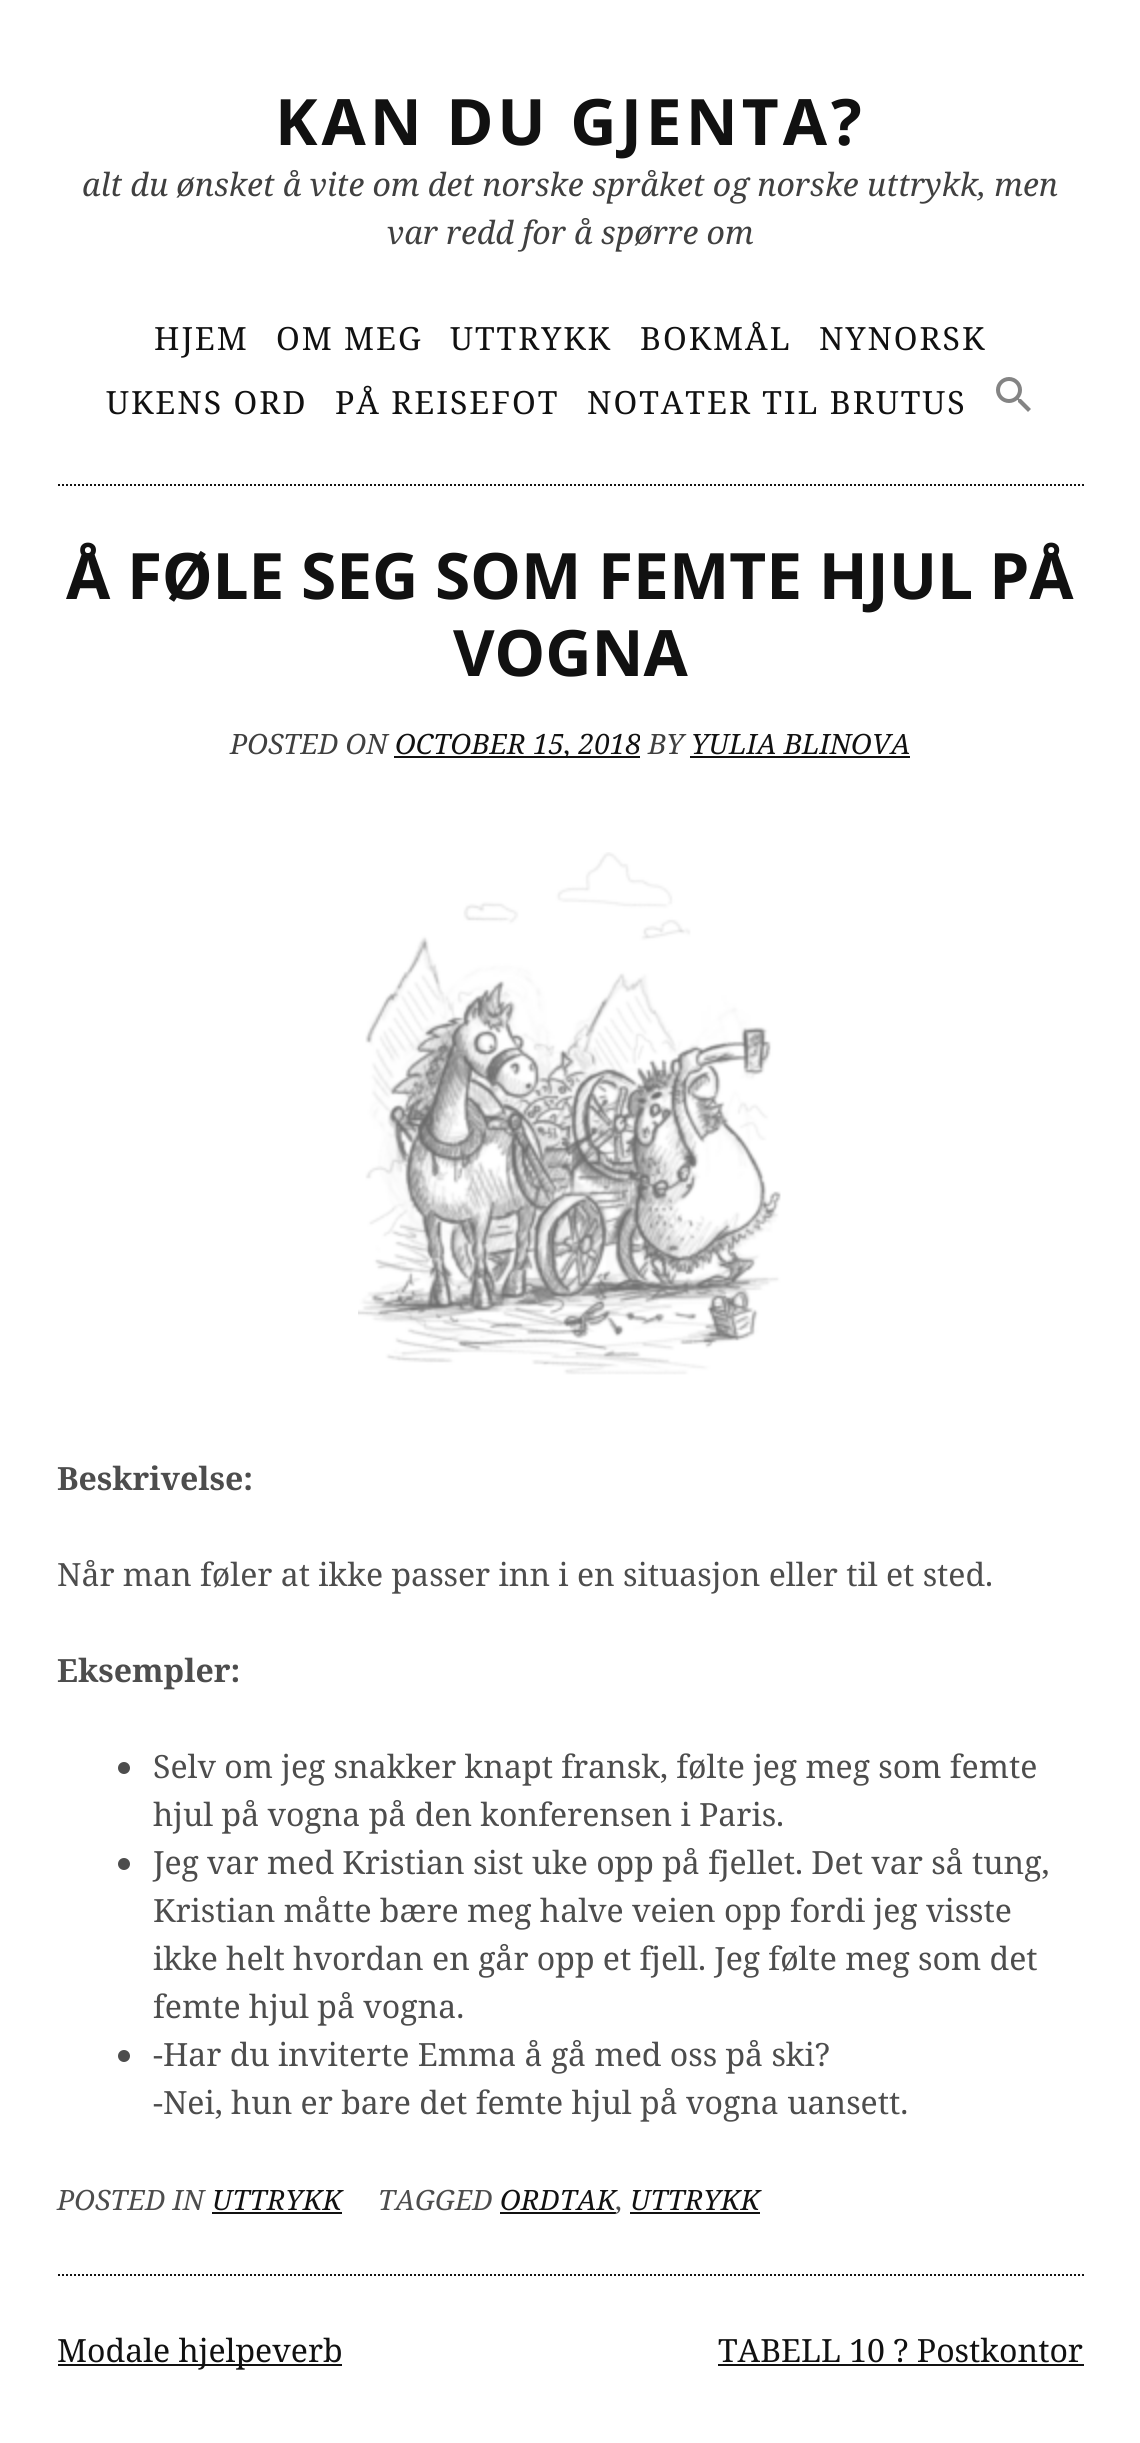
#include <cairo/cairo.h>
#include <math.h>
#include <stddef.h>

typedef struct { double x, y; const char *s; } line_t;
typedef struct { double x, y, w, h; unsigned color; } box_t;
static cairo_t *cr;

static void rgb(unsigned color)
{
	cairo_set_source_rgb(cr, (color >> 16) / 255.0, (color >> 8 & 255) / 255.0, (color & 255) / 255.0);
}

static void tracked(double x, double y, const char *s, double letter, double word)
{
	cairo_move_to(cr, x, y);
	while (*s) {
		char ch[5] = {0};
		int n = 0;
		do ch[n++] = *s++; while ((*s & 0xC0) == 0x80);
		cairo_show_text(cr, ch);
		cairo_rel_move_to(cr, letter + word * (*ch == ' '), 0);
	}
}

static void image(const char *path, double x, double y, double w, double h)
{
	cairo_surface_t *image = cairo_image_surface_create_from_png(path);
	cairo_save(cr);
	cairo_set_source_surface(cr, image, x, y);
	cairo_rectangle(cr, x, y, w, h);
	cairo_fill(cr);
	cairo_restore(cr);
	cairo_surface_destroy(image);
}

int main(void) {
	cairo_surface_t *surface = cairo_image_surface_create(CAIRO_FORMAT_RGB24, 1140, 2443);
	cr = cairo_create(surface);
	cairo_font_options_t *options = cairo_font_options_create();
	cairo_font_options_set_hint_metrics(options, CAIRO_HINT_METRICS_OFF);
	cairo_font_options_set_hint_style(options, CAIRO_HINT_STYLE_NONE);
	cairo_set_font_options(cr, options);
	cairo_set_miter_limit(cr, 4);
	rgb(0xffffff);
	cairo_paint(cr);
	cairo_new_path(cr);
	cairo_move_to(cr, 58, 485);
	cairo_line_to(cr, 1084, 485);
	rgb(0x111111);
	cairo_set_dash(cr, (double[]){2, 2}, 2, 0);
	cairo_stroke(cr);
	image("img/1.png", 996, 377, 35, 35);
	cairo_new_path(cr);
	cairo_move_to(cr, 58, 2275);
	cairo_line_to(cr, 1084, 2275);
	cairo_stroke(cr);
	cairo_rectangle(cr, 394, 756, 246, 2);
	cairo_fill(cr);
	cairo_rectangle(cr, 690, 756, 220, 2);
	cairo_fill(cr);
	image("img/2.png", 358, 852, 423, 523);
	rgb(0x4d4d4d);
	cairo_arc(cr, 124, 1768, 6, 0, 2 * M_PI);
	cairo_fill(cr);
	cairo_arc(cr, 124, 1864, 6, 0, 2 * M_PI);
	cairo_fill(cr);
	cairo_arc(cr, 124, 2056, 6, 0, 2 * M_PI);
	cairo_fill(cr);
	{
		static const box_t items[] = {
			{212, 2212, 130, 2, 0x111111},
			{500, 2212, 116, 2, 0x111111},
			{630, 2212, 130, 2, 0x111111},
			{58, 2364, 284, 2, 0x111111},
			{718, 2364, 366, 2, 0x111111},
		};
		for (size_t i = 0; i < sizeof items / sizeof *items; i++) {
			rgb(items[i].color);
			cairo_rectangle(cr, items[i].x, items[i].y, items[i].w, items[i].h);
			cairo_fill(cr);
		}
	}
	cairo_select_font_face(cr, "Noto Sans", CAIRO_FONT_SLANT_NORMAL, CAIRO_FONT_WEIGHT_BOLD);
	cairo_set_font_size(cr, 64);
	tracked(275, 145, "KAN DU GJENTA?", 4, 0);
	cairo_select_font_face(cr, "Noto Serif", CAIRO_FONT_SLANT_ITALIC, CAIRO_FONT_WEIGHT_NORMAL);
	cairo_set_font_size(cr, 32);
	rgb(0x404040);
	cairo_move_to(cr, 82, 196);
	cairo_show_text(cr, "alt du ønsket å vite om det norske språket og norske uttrykk, men");
	cairo_move_to(cr, 387, 244);
	cairo_show_text(cr, "var redd for å spørre om");
	cairo_select_font_face(cr, "Noto Serif", CAIRO_FONT_SLANT_NORMAL, CAIRO_FONT_WEIGHT_NORMAL);
	rgb(0x111111);
	{
		static const line_t items[] = {
			{154, 350, "HJEM"},
			{276, 350, "OM MEG"},
			{450, 350, "UTTRYKK"},
			{640, 350, "BOKMÅL"},
			{819, 350, "NYNORSK"},
			{106, 414, "UKENS ORD"},
			{335, 414, "PÅ REISEFOT"},
			{587, 414, "NOTATER TIL BRUTUS"},
		};
		for (size_t i = 0; i < sizeof items / sizeof *items; i++) {
			tracked(items[i].x, items[i].y, items[i].s, 2, 0);
		}
	}
	cairo_select_font_face(cr, "Noto Sans", CAIRO_FONT_SLANT_NORMAL, CAIRO_FONT_WEIGHT_BOLD);
	cairo_set_font_size(cr, 64);
	cairo_move_to(cr, 66, 599);
	cairo_show_text(cr, "Å FØLE SEG SOM FEMTE HJUL PÅ");
	cairo_move_to(cr, 453, 676);
	cairo_show_text(cr, "VOGNA");
	cairo_select_font_face(cr, "Noto Serif", CAIRO_FONT_SLANT_ITALIC, CAIRO_FONT_WEIGHT_NORMAL);
	cairo_set_font_size(cr, 28);
	rgb(0x404040);
	cairo_move_to(cr, 230, 754);
	cairo_show_text(cr, "POSTED ON");
	rgb(0x111111);
	cairo_move_to(cr, 395, 754);
	cairo_show_text(cr, "OCTOBER 15, 2018");
	rgb(0x404040);
	cairo_move_to(cr, 648, 754);
	cairo_show_text(cr, "BY");
	rgb(0x111111);
	cairo_move_to(cr, 691, 754);
	cairo_show_text(cr, "YULIA BLINOVA");
	cairo_select_font_face(cr, "Noto Serif", CAIRO_FONT_SLANT_NORMAL, CAIRO_FONT_WEIGHT_BOLD);
	cairo_set_font_size(cr, 32);
	rgb(0x4d4d4d);
	cairo_move_to(cr, 57, 1490);
	cairo_show_text(cr, "Beskrivelse:");
	cairo_select_font_face(cr, "Noto Serif", CAIRO_FONT_SLANT_NORMAL, CAIRO_FONT_WEIGHT_NORMAL);
	cairo_move_to(cr, 57, 1586);
	cairo_show_text(cr, "Når man føler at ikke passer inn i en situasjon eller til et sted.");
	cairo_select_font_face(cr, "Noto Serif", CAIRO_FONT_SLANT_NORMAL, CAIRO_FONT_WEIGHT_BOLD);
	cairo_move_to(cr, 57, 1682);
	cairo_show_text(cr, "Eksempler:");
	cairo_select_font_face(cr, "Noto Serif", CAIRO_FONT_SLANT_NORMAL, CAIRO_FONT_WEIGHT_NORMAL);
	{
		static const line_t items[] = {
			{153, 1778, "Selv om jeg snakker knapt fransk, følte jeg meg som femte"},
			{153, 1826, "hjul på vogna på den konferensen i Paris."},
			{153, 1874, "Jeg var med Kristian sist uke opp på fjellet. Det var så tung,"},
			{153, 1922, "Kristian måtte bære meg halve veien opp fordi jeg visste"},
			{153, 1970, "ikke helt hvordan en går opp et fjell. Jeg følte meg som det"},
			{153, 2018, "femte hjul på vogna."},
			{153, 2066, "-Har du inviterte Emma å gå med oss på ski?"},
			{153, 2114, "-Nei, hun er bare det femte hjul på vogna uansett."},
		};
		for (size_t i = 0; i < sizeof items / sizeof *items; i++) {
			cairo_move_to(cr, items[i].x, items[i].y);
			cairo_show_text(cr, items[i].s);
		}
	}
	cairo_select_font_face(cr, "Noto Serif", CAIRO_FONT_SLANT_ITALIC, CAIRO_FONT_WEIGHT_NORMAL);
	cairo_set_font_size(cr, 28);
	cairo_move_to(cr, 57, 2210);
	cairo_show_text(cr, "POSTED IN");
	rgb(0x111111);
	cairo_move_to(cr, 212, 2210);
	cairo_show_text(cr, "UTTRYKK");
	rgb(0x4d4d4d);
	cairo_move_to(cr, 378, 2210);
	cairo_show_text(cr, "TAGGED");
	rgb(0x111111);
	cairo_move_to(cr, 500, 2210);
	cairo_show_text(cr, "ORDTAK");
	cairo_move_to(cr, 630, 2210);
	cairo_show_text(cr, "UTTRYKK");
	rgb(0x4d4d4d);
	cairo_move_to(cr, 616, 2210);
	cairo_show_text(cr, ",");
	cairo_select_font_face(cr, "Noto Serif", CAIRO_FONT_SLANT_NORMAL, CAIRO_FONT_WEIGHT_NORMAL);
	cairo_set_font_size(cr, 32);
	rgb(0x111111);
	cairo_move_to(cr, 57, 2362);
	cairo_show_text(cr, "Modale hjelpeverb");
	cairo_move_to(cr, 718, 2362);
	cairo_show_text(cr, "TABELL 10 ? Postkontor");
	cairo_surface_write_to_png(surface, "page.png");
	cairo_font_options_destroy(options);
	cairo_destroy(cr);
	cairo_surface_destroy(surface);
	return 0;
}
